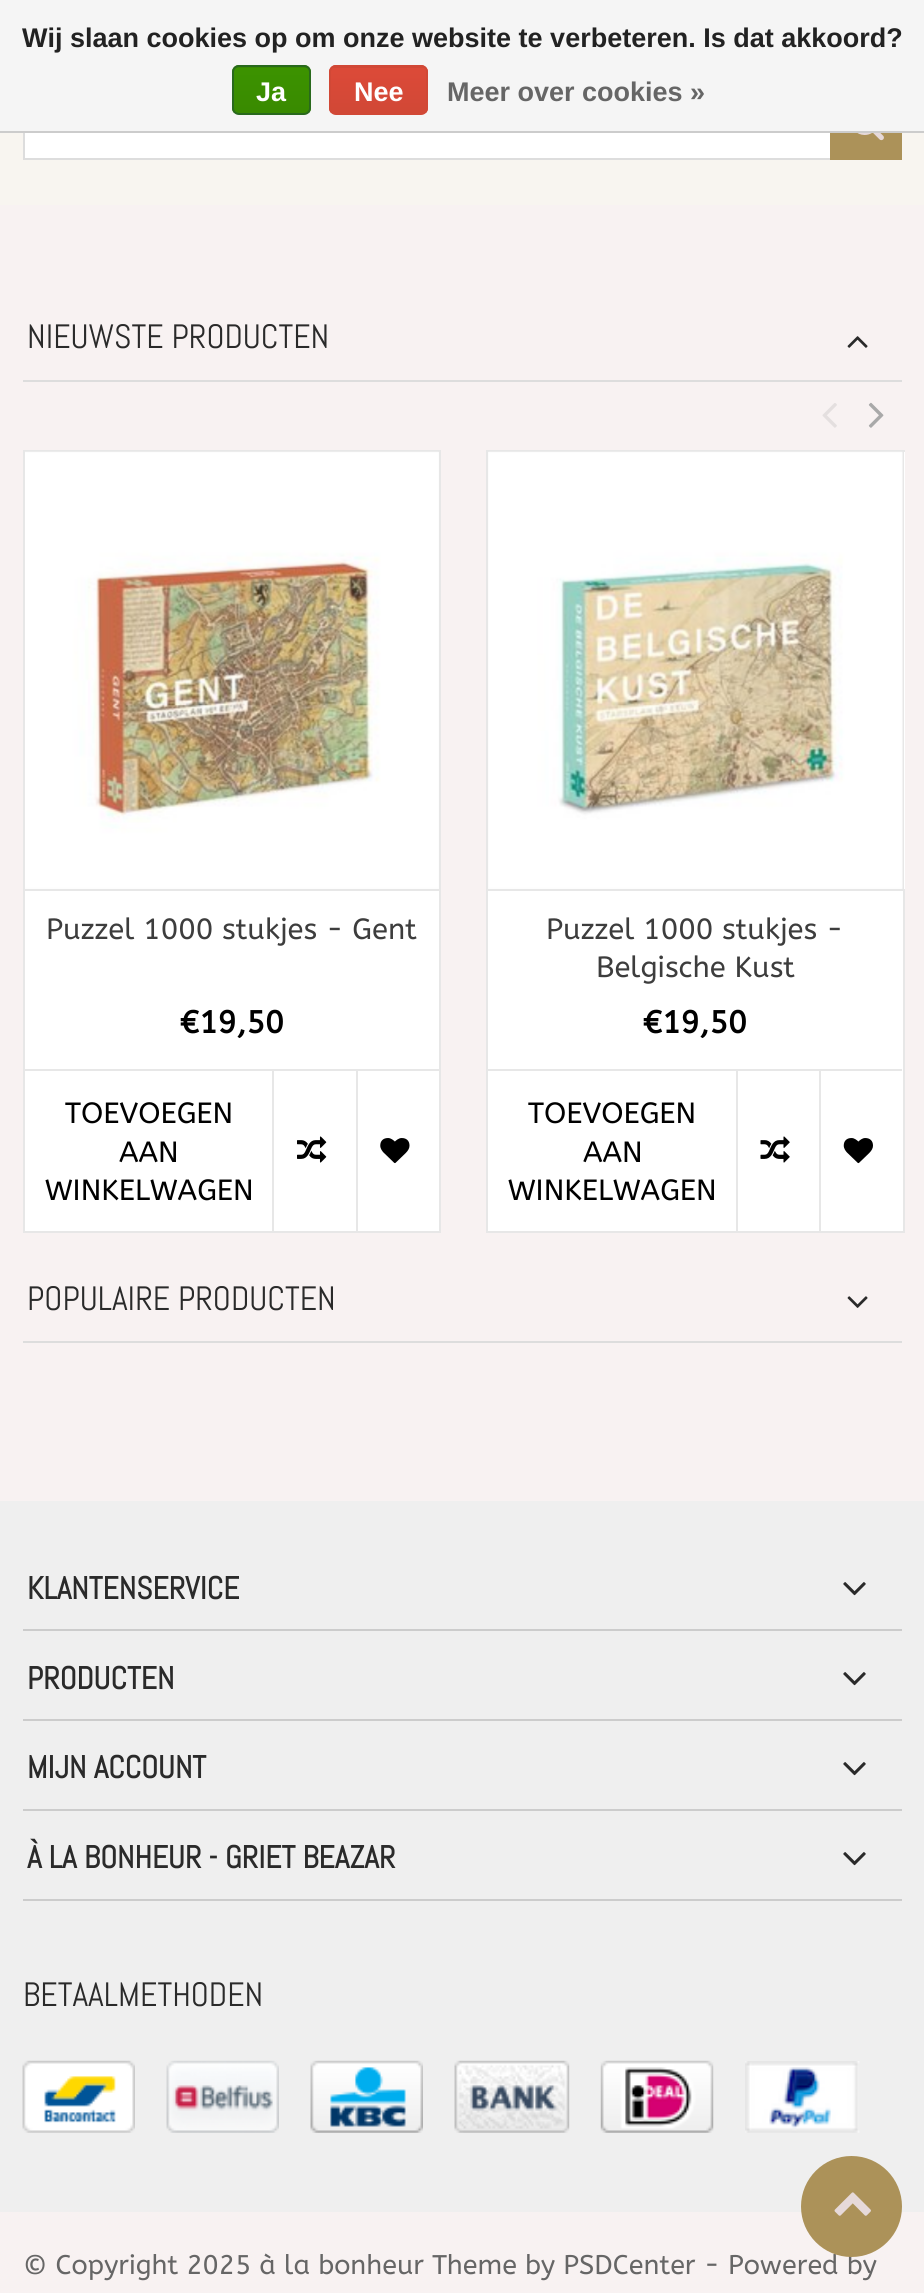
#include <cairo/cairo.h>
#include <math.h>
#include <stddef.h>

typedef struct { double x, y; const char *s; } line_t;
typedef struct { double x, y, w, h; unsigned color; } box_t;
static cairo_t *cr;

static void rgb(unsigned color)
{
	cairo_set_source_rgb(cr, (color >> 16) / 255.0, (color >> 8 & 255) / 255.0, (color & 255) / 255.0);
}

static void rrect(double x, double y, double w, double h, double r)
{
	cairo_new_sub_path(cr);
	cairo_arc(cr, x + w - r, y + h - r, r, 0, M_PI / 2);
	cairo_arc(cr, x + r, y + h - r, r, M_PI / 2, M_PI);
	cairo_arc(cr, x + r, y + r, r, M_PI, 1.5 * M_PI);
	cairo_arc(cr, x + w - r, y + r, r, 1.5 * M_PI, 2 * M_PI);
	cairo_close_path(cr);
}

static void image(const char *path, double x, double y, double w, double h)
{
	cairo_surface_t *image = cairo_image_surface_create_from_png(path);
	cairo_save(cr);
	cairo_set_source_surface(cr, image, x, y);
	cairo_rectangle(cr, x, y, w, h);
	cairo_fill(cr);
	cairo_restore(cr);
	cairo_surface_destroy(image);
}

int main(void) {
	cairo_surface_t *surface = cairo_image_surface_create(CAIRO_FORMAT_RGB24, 924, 2293);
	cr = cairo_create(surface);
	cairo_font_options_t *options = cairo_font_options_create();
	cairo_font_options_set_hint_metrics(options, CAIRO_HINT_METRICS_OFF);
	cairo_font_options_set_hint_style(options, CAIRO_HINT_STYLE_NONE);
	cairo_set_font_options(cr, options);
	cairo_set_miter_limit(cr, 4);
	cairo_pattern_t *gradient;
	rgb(0xf8f5f0);
	cairo_paint(cr);
	rgb(0xffffff);
	cairo_rectangle(cr, 25, 133, 805, 25);
	cairo_fill(cr);
	cairo_rectangle(cr, 24, 89, 877, 70);
	rgb(0xdddddd);
	cairo_stroke(cr);
	rgb(0xf5f5f5);
	cairo_rectangle(cr, 0, 0, 924, 131);
	cairo_fill(cr);
	rgb(0xcccccc);
	cairo_rectangle(cr, 0, 131, 924, 2);
	cairo_fill(cr);
	cairo_save(cr);
	rrect(232, 65, 79, 50, 7);
	cairo_clip(cr);
	gradient = cairo_pattern_create_linear(271, 22, 271, 68);
	cairo_pattern_add_color_stop_rgba(gradient, 0, 0.235, 0.576, 0, 1);
	cairo_pattern_add_color_stop_rgba(gradient, 1, 0.224, 0.541, 0, 1);
	cairo_set_source(cr, gradient);
	cairo_pattern_destroy(gradient);
	cairo_rectangle(cr, 232, 65, 79, 3);
	cairo_fill(cr);
	gradient = cairo_pattern_create_linear(271, 68, 271, 113);
	cairo_pattern_add_color_stop_rgba(gradient, 0, 0.235, 0.576, 0, 1);
	cairo_pattern_add_color_stop_rgba(gradient, 1, 0.224, 0.541, 0, 1);
	cairo_set_source(cr, gradient);
	cairo_pattern_destroy(gradient);
	cairo_rectangle(cr, 232, 68, 79, 45);
	cairo_fill(cr);
	cairo_restore(cr);
	rrect(233, 66, 77, 48, 6);
	rgb(0x29691d);
	cairo_stroke(cr);
	cairo_save(cr);
	rrect(329, 65, 99, 50, 7);
	cairo_clip(cr);
	gradient = cairo_pattern_create_linear(378, 22, 378, 68);
	cairo_pattern_add_color_stop_rgba(gradient, 0, 0.863, 0.29, 0.22, 1);
	cairo_pattern_add_color_stop_rgba(gradient, 1, 0.82, 0.282, 0.212, 1);
	cairo_set_source(cr, gradient);
	cairo_pattern_destroy(gradient);
	cairo_rectangle(cr, 329, 65, 99, 3);
	cairo_fill(cr);
	gradient = cairo_pattern_create_linear(378, 68, 378, 113);
	cairo_pattern_add_color_stop_rgba(gradient, 0, 0.863, 0.29, 0.22, 1);
	cairo_pattern_add_color_stop_rgba(gradient, 1, 0.82, 0.282, 0.212, 1);
	cairo_set_source(cr, gradient);
	cairo_pattern_destroy(gradient);
	cairo_rectangle(cr, 329, 68, 99, 45);
	cairo_fill(cr);
	cairo_restore(cr);
	rrect(330, 66, 97, 48, 6);
	rgb(0xd14836);
	cairo_stroke(cr);
	rgb(0xac9259);
	cairo_rectangle(cr, 830, 133, 72, 27);
	cairo_fill(cr);
	image("img/1.png", 857, 133, 27, 8);
	rgb(0xf8f2f2);
	cairo_rectangle(cr, 0, 205, 924, 1296);
	cairo_fill(cr);
	rgb(0xdddddd);
	cairo_rectangle(cr, 23, 380, 879, 2);
	cairo_fill(cr);
	image("img/2.png", 847, 336, 21, 12);
	image("img/3.png", 822, 403, 15, 25);
	image("img/4.png", 868, 402, 16, 26);
	{
		static const box_t items[] = {
			{23, 450, 418, 2, 0xe7e7e7},
			{439, 450, 2, 439, 0xe7e7e7},
			{23, 450, 2, 439, 0xe7e7e7},
			{25, 452, 414, 437, 0xf7f7f7},
		};
		for (size_t i = 0; i < sizeof items / sizeof *items; i++) {
			rgb(items[i].color);
			cairo_rectangle(cr, items[i].x, items[i].y, items[i].w, items[i].h);
			cairo_fill(cr);
		}
	}
	image("img/5.png", 25, 451, 414, 438);
	rgb(0xffffff);
	cairo_rectangle(cr, 24, 890, 416, 342);
	cairo_fill_preserve(cr);
	rgb(0xe7e7e7);
	cairo_stroke(cr);
	cairo_rectangle(cr, 25, 1069, 414, 2);
	cairo_fill(cr);
	cairo_rectangle(cr, 272, 1071, 2, 160);
	cairo_fill(cr);
	image("img/6.png", 297, 1136, 30, 27);
	cairo_rectangle(cr, 356, 1071, 2, 160);
	cairo_fill(cr);
	image("img/7.png", 380, 1138, 30, 26);
	{
		static const box_t items[] = {
			{488, 452, 417, 779, 0xffffff},
			{486, 450, 419, 2, 0xe7e7e7},
			{902, 450, 2, 439, 0xe7e7e7},
			{486, 450, 2, 439, 0xe7e7e7},
			{488, 452, 414, 437, 0xf7f7f7},
		};
		for (size_t i = 0; i < sizeof items / sizeof *items; i++) {
			rgb(items[i].color);
			cairo_rectangle(cr, items[i].x, items[i].y, items[i].w, items[i].h);
			cairo_fill(cr);
		}
	}
	image("img/8.png", 488, 451, 415, 438);
	cairo_rectangle(cr, 487, 890, 417, 342);
	rgb(0xe7e7e7);
	cairo_stroke(cr);
	cairo_rectangle(cr, 488, 1069, 414, 2);
	cairo_fill(cr);
	cairo_rectangle(cr, 736, 1071, 2, 160);
	cairo_fill(cr);
	image("img/9.png", 760, 1136, 30, 27);
	cairo_rectangle(cr, 819, 1071, 2, 160);
	cairo_fill(cr);
	image("img/10.png", 843, 1138, 30, 26);
	rgb(0xdddddd);
	cairo_rectangle(cr, 23, 1341, 879, 2);
	cairo_fill(cr);
	image("img/11.png", 847, 1296, 21, 12);
	rgb(0xefefef);
	cairo_rectangle(cr, 0, 1501, 924, 711);
	cairo_fill(cr);
	rgb(0xcccccc);
	cairo_rectangle(cr, 23, 1629, 879, 2);
	cairo_fill(cr);
	image("img/12.png", 843, 1582, 23, 14);
	cairo_rectangle(cr, 23, 1719, 879, 2);
	cairo_fill(cr);
	image("img/12.png", 843, 1672, 23, 14);
	cairo_rectangle(cr, 23, 1809, 879, 2);
	cairo_fill(cr);
	image("img/12.png", 843, 1762, 23, 14);
	cairo_rectangle(cr, 23, 1899, 879, 2);
	cairo_fill(cr);
	image("img/12.png", 843, 1852, 23, 14);
	image("img/13.png", 22, 2060, 113, 73);
	image("img/14.png", 166, 2060, 113, 73);
	image("img/15.png", 310, 2060, 113, 73);
	image("img/16.png", 454, 2060, 116, 73);
	image("img/17.png", 600, 2060, 114, 73);
	image("img/18.png", 745, 2061, 115, 72);
	rgb(0xf8f2f2);
	cairo_rectangle(cr, 0, 2212, 924, 81);
	cairo_fill(cr);
	cairo_select_font_face(cr, "Liberation Sans", CAIRO_FONT_SLANT_NORMAL, CAIRO_FONT_WEIGHT_BOLD);
	cairo_set_font_size(cr, 27);
	rgb(0x222222);
	cairo_move_to(cr, 22, 47);
	cairo_show_text(cr, "Wij slaan cookies op om onze website te verbeteren. Is dat akkoord?");
	rgb(0xffffff);
	cairo_move_to(cr, 256, 101);
	cairo_show_text(cr, "Ja");
	cairo_move_to(cr, 354, 101);
	cairo_show_text(cr, "Nee");
	rgb(0x666666);
	cairo_move_to(cr, 447, 101);
	cairo_show_text(cr, "Meer over cookies »");
	cairo_select_font_face(cr, "Abel", CAIRO_FONT_SLANT_NORMAL, CAIRO_FONT_WEIGHT_NORMAL);
	cairo_set_font_size(cr, 33.75);
	rgb(0x2a2a2a);
	cairo_move_to(cr, 27, 348);
	cairo_show_text(cr, "NIEUWSTE PRODUCTEN");
	cairo_select_font_face(cr, "ABeeZee", CAIRO_FONT_SLANT_NORMAL, CAIRO_FONT_WEIGHT_NORMAL);
	cairo_set_font_size(cr, 29.25);
	rgb(0x3d3d3d);
	cairo_move_to(cr, 46, 939);
	cairo_show_text(cr, "Puzzel 1000 stukjes - Gent");
	cairo_select_font_face(cr, "ABeeZee", CAIRO_FONT_SLANT_NORMAL, CAIRO_FONT_WEIGHT_BOLD);
	cairo_set_font_size(cr, 31.5);
	rgb(0x000000);
	cairo_move_to(cr, 180, 1033);
	cairo_show_text(cr, "€19,50");
	cairo_select_font_face(cr, "ABeeZee", CAIRO_FONT_SLANT_NORMAL, CAIRO_FONT_WEIGHT_NORMAL);
	cairo_set_font_size(cr, 29.25);
	{
		static const line_t items[] = {
			{65, 1123, "TOEVOEGEN"},
			{119, 1162, "AAN"},
			{45, 1200, "WINKELWAGEN"},
		};
		for (size_t i = 0; i < sizeof items / sizeof *items; i++) {
			cairo_move_to(cr, items[i].x, items[i].y);
			cairo_show_text(cr, items[i].s);
		}
	}
	rgb(0x3d3d3d);
	cairo_move_to(cr, 546, 939);
	cairo_show_text(cr, "Puzzel 1000 stukjes -");
	cairo_move_to(cr, 596, 977);
	cairo_show_text(cr, "Belgische Kust");
	cairo_select_font_face(cr, "ABeeZee", CAIRO_FONT_SLANT_NORMAL, CAIRO_FONT_WEIGHT_BOLD);
	cairo_set_font_size(cr, 31.5);
	rgb(0x000000);
	cairo_move_to(cr, 643, 1033);
	cairo_show_text(cr, "€19,50");
	cairo_select_font_face(cr, "ABeeZee", CAIRO_FONT_SLANT_NORMAL, CAIRO_FONT_WEIGHT_NORMAL);
	cairo_set_font_size(cr, 29.25);
	{
		static const line_t items[] = {
			{528, 1123, "TOEVOEGEN"},
			{583, 1162, "AAN"},
			{508, 1200, "WINKELWAGEN"},
		};
		for (size_t i = 0; i < sizeof items / sizeof *items; i++) {
			cairo_move_to(cr, items[i].x, items[i].y);
			cairo_show_text(cr, items[i].s);
		}
	}
	cairo_select_font_face(cr, "Abel", CAIRO_FONT_SLANT_NORMAL, CAIRO_FONT_WEIGHT_NORMAL);
	cairo_set_font_size(cr, 33.75);
	rgb(0x2a2a2a);
	cairo_move_to(cr, 27, 1310);
	cairo_show_text(cr, "POPULAIRE PRODUCTEN");
	cairo_select_font_face(cr, "Abel", CAIRO_FONT_SLANT_NORMAL, CAIRO_FONT_WEIGHT_BOLD);
	cairo_set_font_size(cr, 31.5);
	{
		static const line_t items[] = {
			{27, 1599, "KLANTENSERVICE"},
			{27, 1689, "PRODUCTEN"},
			{27, 1778, "MIJN ACCOUNT"},
			{27, 1868, "À LA BONHEUR - GRIET BEAZAR"},
		};
		for (size_t i = 0; i < sizeof items / sizeof *items; i++) {
			cairo_move_to(cr, items[i].x, items[i].y);
			cairo_show_text(cr, items[i].s);
		}
	}
	cairo_select_font_face(cr, "Abel", CAIRO_FONT_SLANT_NORMAL, CAIRO_FONT_WEIGHT_NORMAL);
	cairo_set_font_size(cr, 33.75);
	cairo_move_to(cr, 23, 2006);
	cairo_show_text(cr, "BETAALMETHODEN");
	cairo_select_font_face(cr, "ABeeZee", CAIRO_FONT_SLANT_NORMAL, CAIRO_FONT_WEIGHT_NORMAL);
	cairo_set_font_size(cr, 27);
	rgb(0x666666);
	cairo_move_to(cr, 23, 2274);
	cairo_show_text(cr, "© Copyright 2025 à la bonheur Theme by PSDCenter - Powered by");
	rgb(0xac9259);
	cairo_new_path(cr);
	cairo_arc(cr, 851.5, 2206.5, 50.5, 0, 2 * M_PI);
	cairo_fill(cr);
	image("img/19.png", 834, 2192, 37, 24);
	cairo_surface_write_to_png(surface, "page.png");
	cairo_font_options_destroy(options);
	cairo_destroy(cr);
	cairo_surface_destroy(surface);
	return 0;
}
